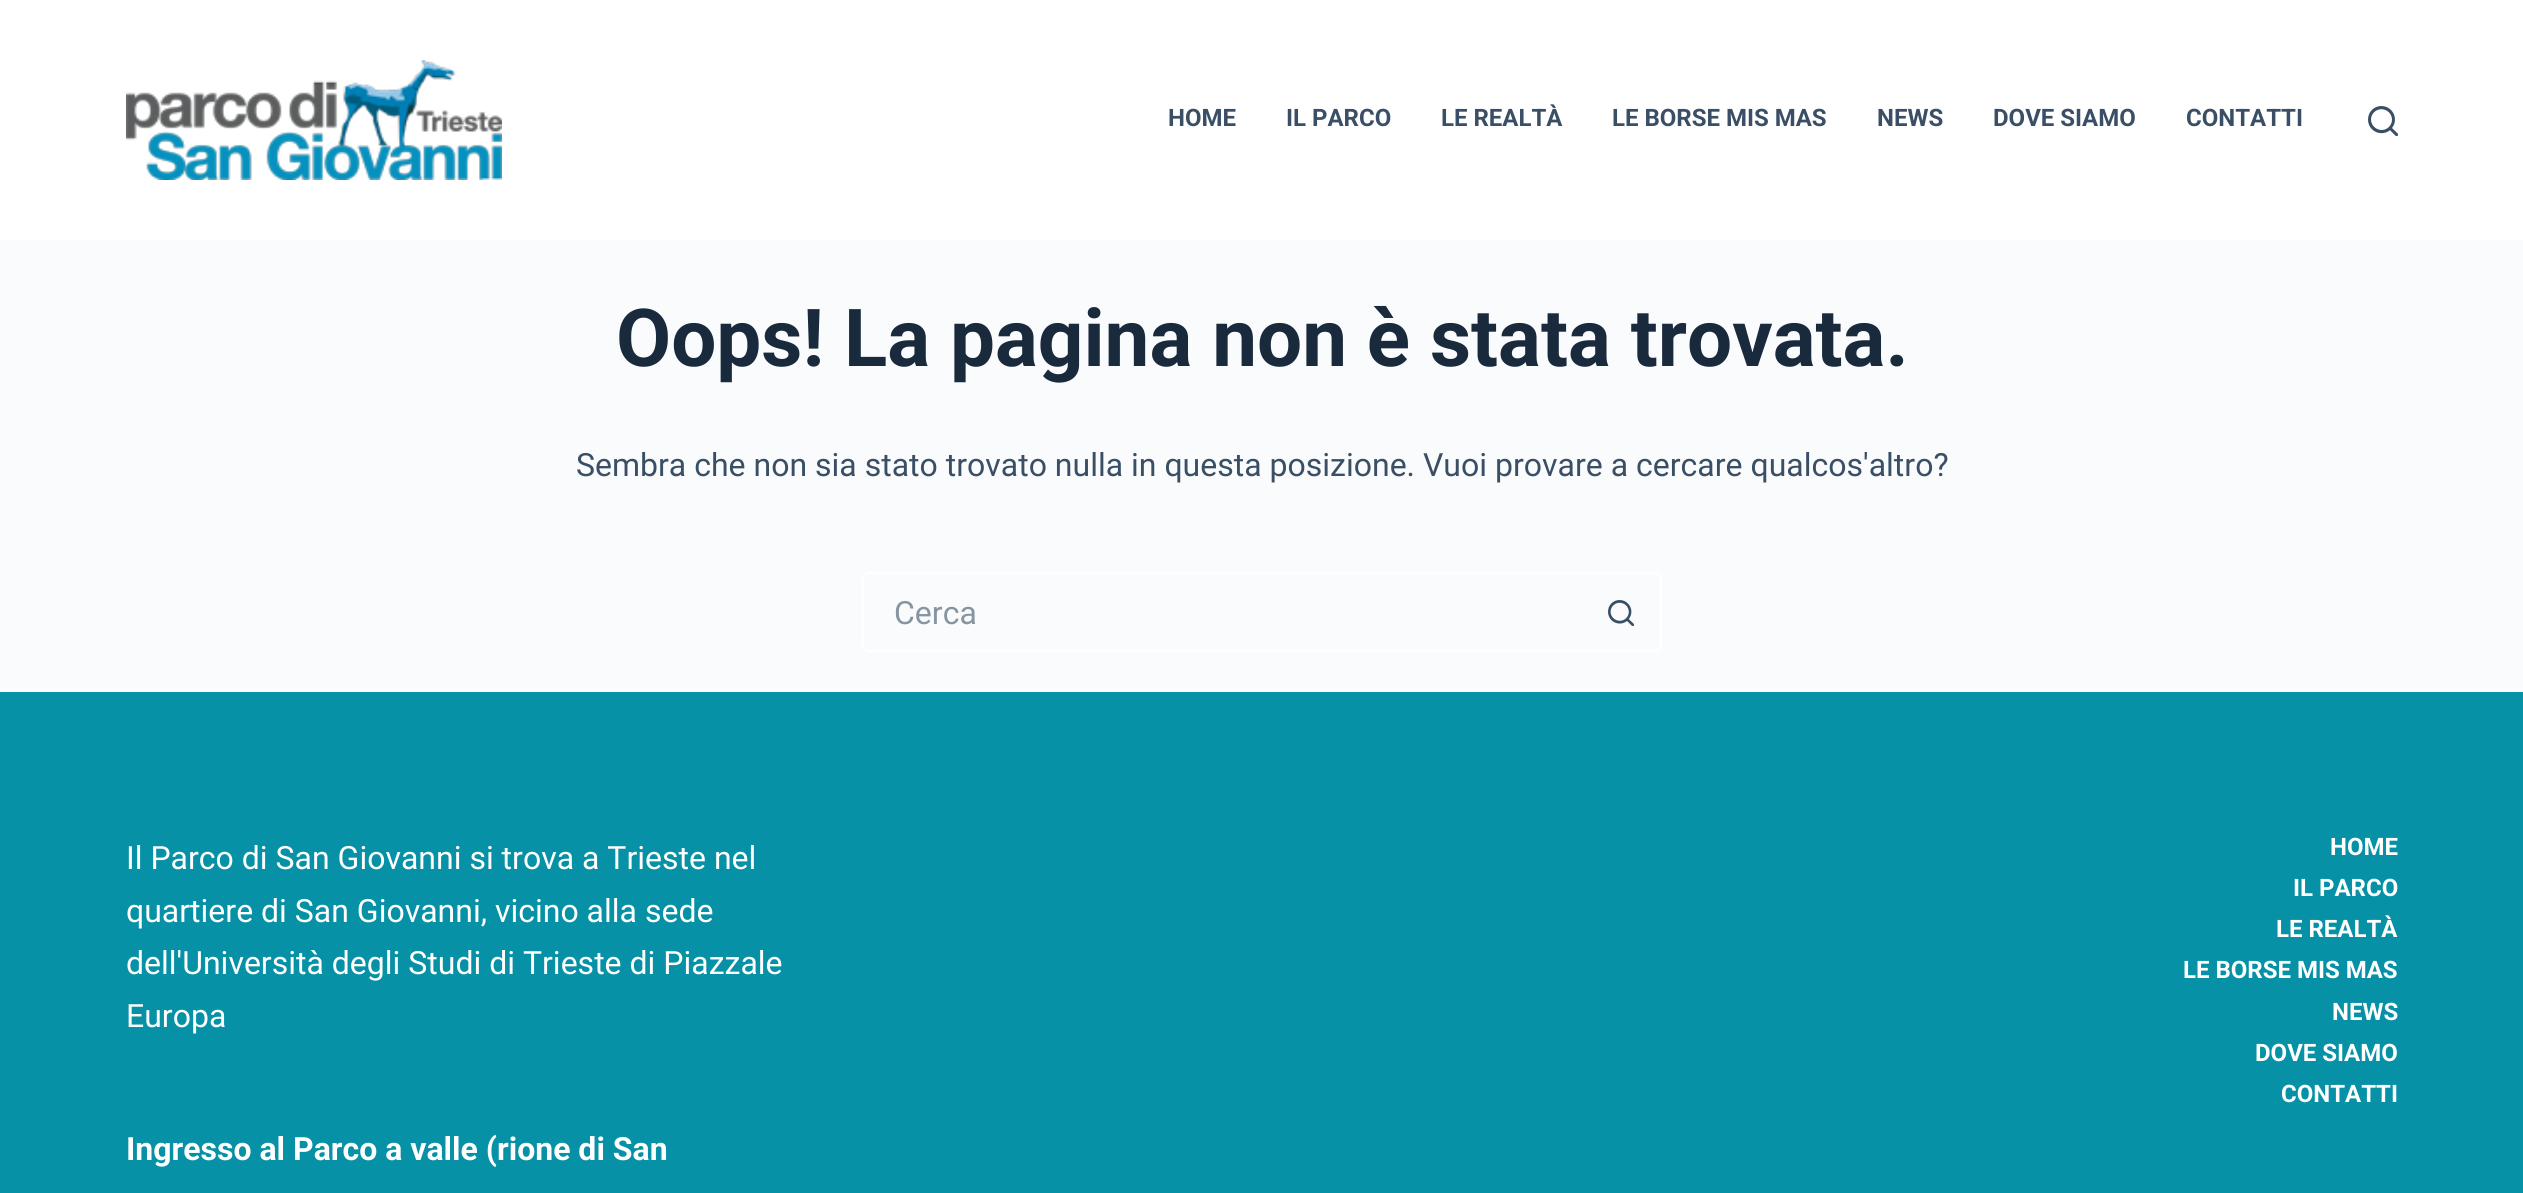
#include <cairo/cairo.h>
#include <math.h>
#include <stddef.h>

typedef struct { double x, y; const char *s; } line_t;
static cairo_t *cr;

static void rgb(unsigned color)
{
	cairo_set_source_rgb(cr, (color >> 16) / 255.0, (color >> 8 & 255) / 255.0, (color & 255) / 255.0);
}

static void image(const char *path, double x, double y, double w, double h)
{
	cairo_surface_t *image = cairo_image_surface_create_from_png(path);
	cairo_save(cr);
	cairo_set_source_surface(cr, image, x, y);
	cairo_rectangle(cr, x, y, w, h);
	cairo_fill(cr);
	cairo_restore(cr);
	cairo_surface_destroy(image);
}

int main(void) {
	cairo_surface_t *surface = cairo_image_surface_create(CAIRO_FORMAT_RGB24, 2523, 1193);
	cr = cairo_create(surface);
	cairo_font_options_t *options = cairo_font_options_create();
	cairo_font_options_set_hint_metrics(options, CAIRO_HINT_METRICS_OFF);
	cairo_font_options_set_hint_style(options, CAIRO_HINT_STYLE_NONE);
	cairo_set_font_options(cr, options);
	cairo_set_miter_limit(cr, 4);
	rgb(0xfafbfc);
	cairo_paint(cr);
	rgb(0xffffff);
	cairo_rectangle(cr, 0, 0, 2523, 240);
	cairo_fill(cr);
	image("img/1.png", 126, 60, 376, 120);
	image("img/2.png", 2368, 106, 30, 30);
	cairo_set_fill_rule(cr, CAIRO_FILL_RULE_EVEN_ODD);
	cairo_new_path(cr);
	cairo_move_to(cr, 868, 572);
	cairo_line_to(cr, 1582, 572);
	cairo_line_to(cr, 1582, 652);
	cairo_line_to(cr, 868, 652);
	cairo_curve_to(cr, 865, 652, 862, 649, 862, 646);
	cairo_line_to(cr, 862, 578);
	cairo_curve_to(cr, 862, 575, 865, 572, 868, 572);
	cairo_close_path(cr);
	cairo_move_to(cr, 868, 574);
	cairo_line_to(cr, 1582, 574);
	cairo_line_to(cr, 1582, 650);
	cairo_line_to(cr, 868, 650);
	cairo_curve_to(cr, 866, 650, 864, 648, 864, 646);
	cairo_line_to(cr, 864, 578);
	cairo_curve_to(cr, 864, 576, 866, 574, 868, 574);
	cairo_close_path(cr);
	cairo_fill(cr);
	cairo_new_path(cr);
	cairo_move_to(cr, 1582, 572);
	cairo_line_to(cr, 1656, 572);
	cairo_curve_to(cr, 1659, 572, 1662, 575, 1662, 578);
	cairo_line_to(cr, 1662, 646);
	cairo_curve_to(cr, 1662, 649, 1659, 652, 1656, 652);
	cairo_line_to(cr, 1582, 652);
	cairo_close_path(cr);
	cairo_move_to(cr, 1582, 574);
	cairo_line_to(cr, 1656, 574);
	cairo_curve_to(cr, 1658, 574, 1660, 576, 1660, 578);
	cairo_line_to(cr, 1660, 646);
	cairo_curve_to(cr, 1660, 648, 1658, 650, 1656, 650);
	cairo_line_to(cr, 1582, 650);
	cairo_close_path(cr);
	cairo_fill(cr);
	image("img/3.png", 1608, 600, 26, 26);
	rgb(0x0691a6);
	cairo_rectangle(cr, 0, 692, 2523, 501);
	cairo_fill(cr);
	cairo_select_font_face(cr, "Roboto", CAIRO_FONT_SLANT_NORMAL, CAIRO_FONT_WEIGHT_BOLD);
	cairo_set_font_size(cr, 24);
	rgb(0x3a4f66);
	{
		static const line_t items[] = {
			{1168, 126, "HOME"},
			{1286, 126, "IL PARCO"},
			{1441, 126, "LE REALTÀ"},
			{1612, 126, "LE BORSE MIS MAS"},
			{1877, 126, "NEWS"},
			{1993, 126, "DOVE SIAMO"},
			{2186, 126, "CONTATTI"},
		};
		for (size_t i = 0; i < sizeof items / sizeof *items; i++) {
			cairo_move_to(cr, items[i].x, items[i].y);
			cairo_show_text(cr, items[i].s);
		}
	}
	cairo_set_font_size(cr, 80);
	rgb(0x192a3d);
	cairo_move_to(cr, 616, 366);
	cairo_show_text(cr, "Oops! La pagina non è stata trovata.");
	cairo_select_font_face(cr, "Roboto", CAIRO_FONT_SLANT_NORMAL, CAIRO_FONT_WEIGHT_NORMAL);
	cairo_set_font_size(cr, 32);
	rgb(0x3a4f66);
	cairo_move_to(cr, 576, 476);
	cairo_show_text(cr, "Sembra che non sia stato trovato nulla in questa posizione. Vuoi provare a cercare qualcos'altro?");
	rgb(0x8794a2);
	cairo_move_to(cr, 894, 624);
	cairo_show_text(cr, "Cerca");
	rgb(0xffffff);
	{
		static const line_t items[] = {
			{126, 869, "Il Parco di San Giovanni si trova a Trieste nel"},
			{126, 922, "quartiere di San Giovanni, vicino alla sede"},
			{126, 974, "dell'Università degli Studi di Trieste di Piazzale"},
			{126, 1027, "Europa"},
		};
		for (size_t i = 0; i < sizeof items / sizeof *items; i++) {
			cairo_move_to(cr, items[i].x, items[i].y);
			cairo_show_text(cr, items[i].s);
		}
	}
	cairo_select_font_face(cr, "Roboto", CAIRO_FONT_SLANT_NORMAL, CAIRO_FONT_WEIGHT_BOLD);
	cairo_move_to(cr, 126, 1160);
	cairo_show_text(cr, "Ingresso al Parco a valle (rione di San");
	cairo_set_font_size(cr, 24);
	{
		static const line_t items[] = {
			{2330, 855, "HOME"},
			{2293, 896, "IL PARCO"},
			{2276, 937, "LE REALTÀ"},
			{2183, 978, "LE BORSE MIS MAS"},
			{2332, 1020, "NEWS"},
			{2255, 1061, "DOVE SIAMO"},
			{2281, 1102, "CONTATTI"},
		};
		for (size_t i = 0; i < sizeof items / sizeof *items; i++) {
			cairo_move_to(cr, items[i].x, items[i].y);
			cairo_show_text(cr, items[i].s);
		}
	}
	cairo_surface_write_to_png(surface, "page.png");
	cairo_font_options_destroy(options);
	cairo_destroy(cr);
	cairo_surface_destroy(surface);
	return 0;
}
